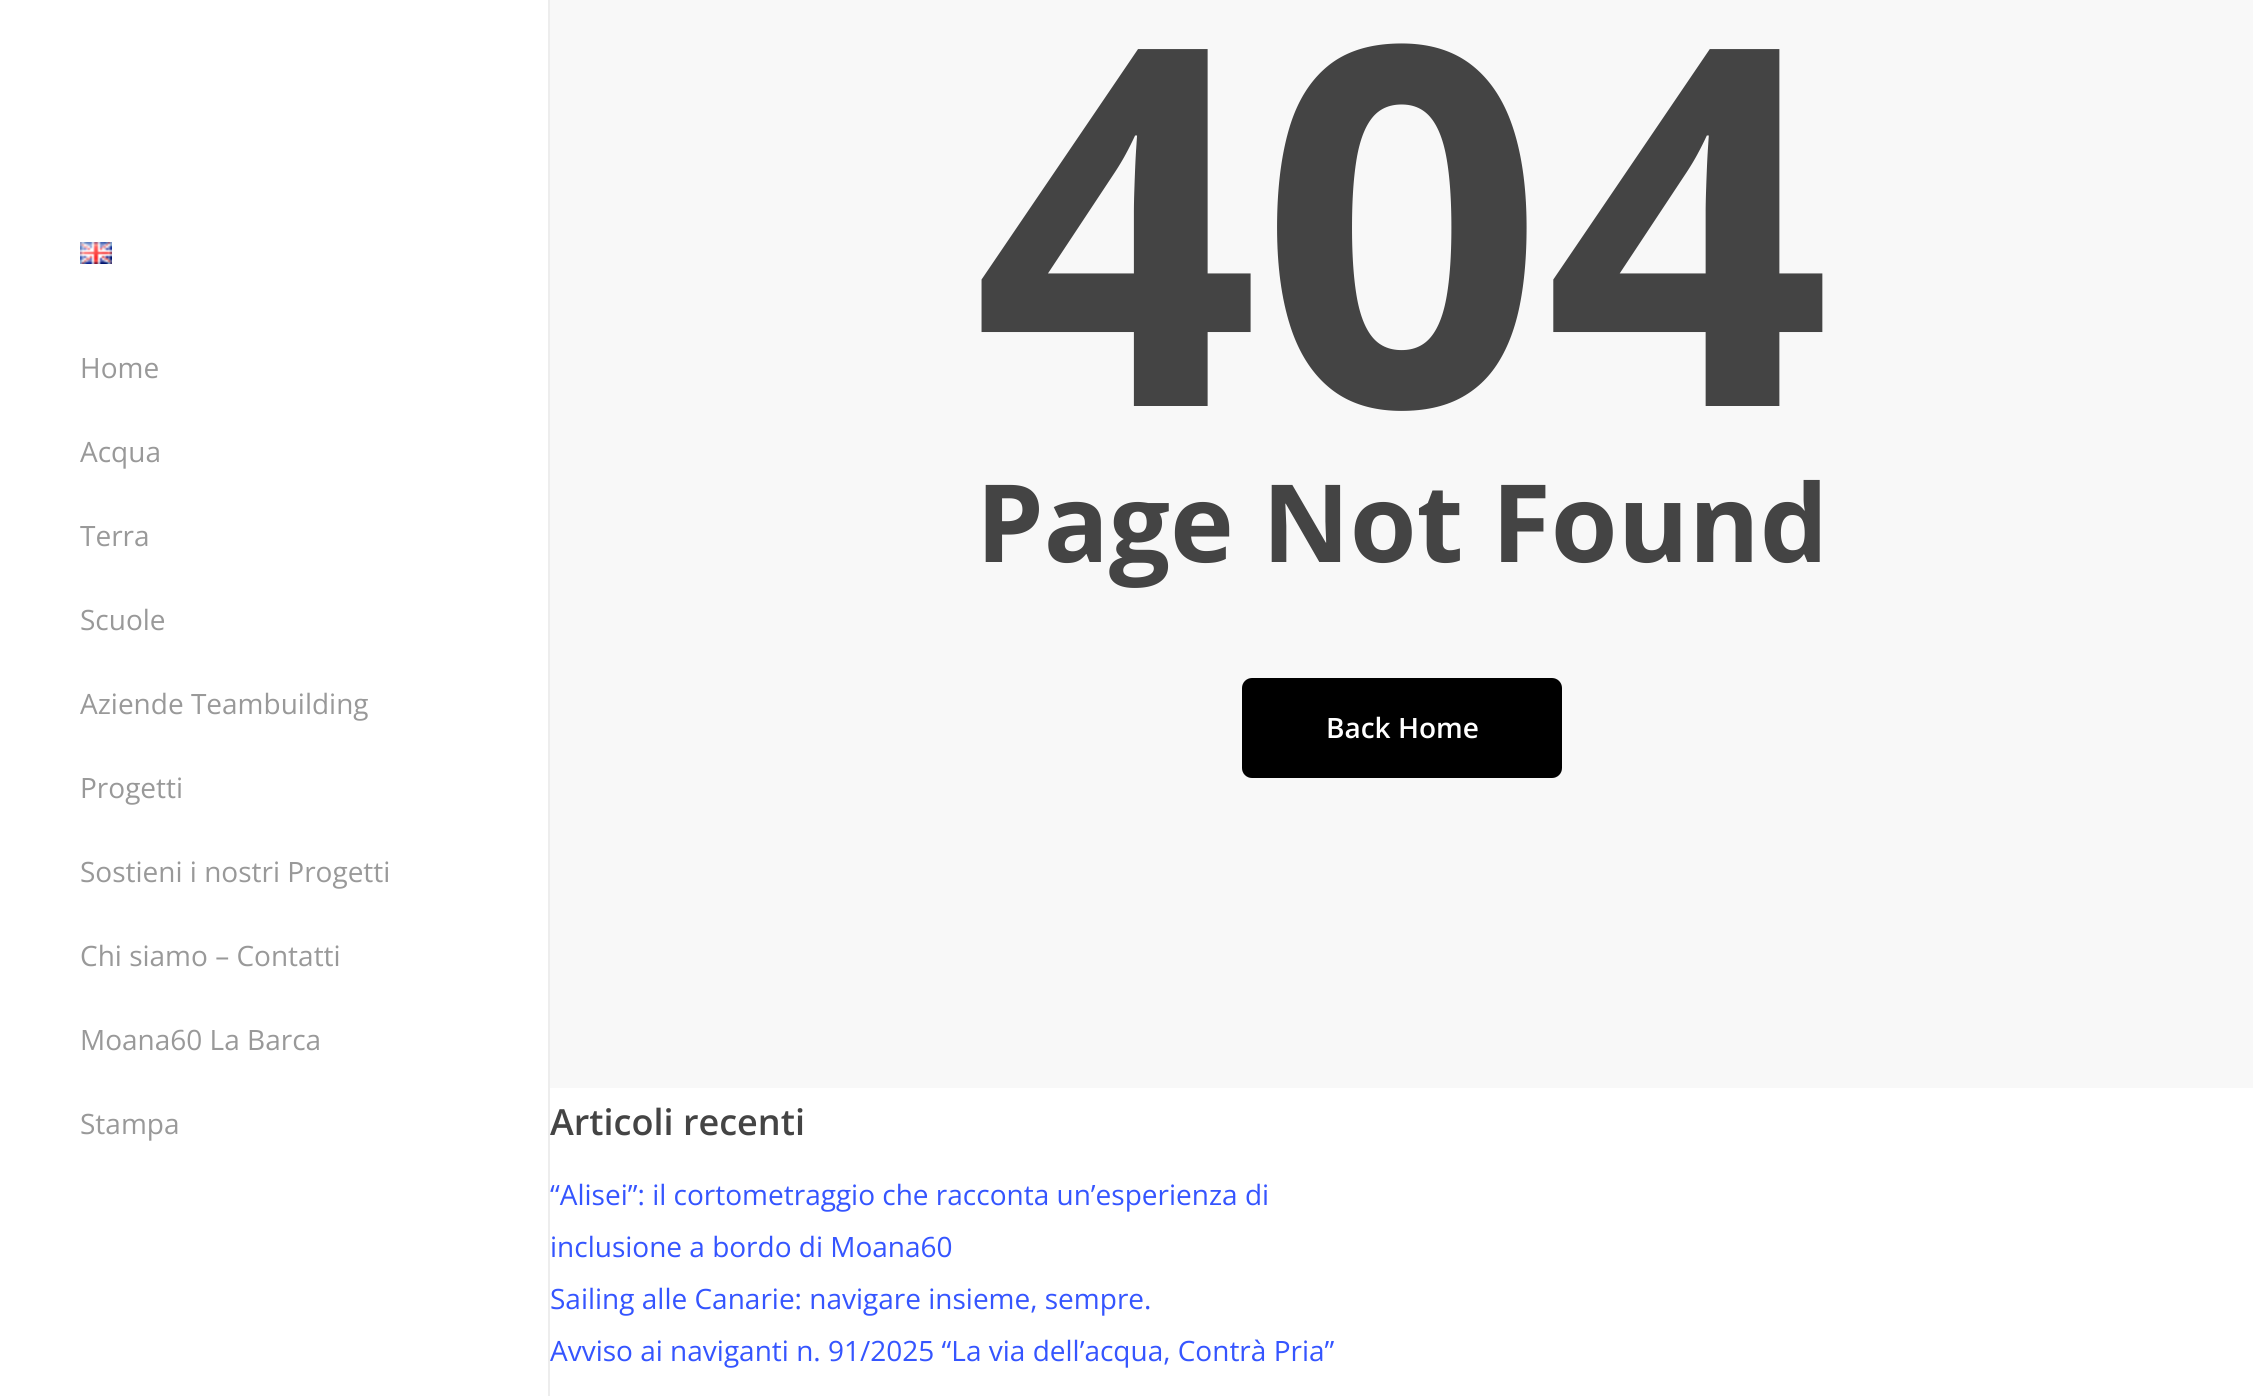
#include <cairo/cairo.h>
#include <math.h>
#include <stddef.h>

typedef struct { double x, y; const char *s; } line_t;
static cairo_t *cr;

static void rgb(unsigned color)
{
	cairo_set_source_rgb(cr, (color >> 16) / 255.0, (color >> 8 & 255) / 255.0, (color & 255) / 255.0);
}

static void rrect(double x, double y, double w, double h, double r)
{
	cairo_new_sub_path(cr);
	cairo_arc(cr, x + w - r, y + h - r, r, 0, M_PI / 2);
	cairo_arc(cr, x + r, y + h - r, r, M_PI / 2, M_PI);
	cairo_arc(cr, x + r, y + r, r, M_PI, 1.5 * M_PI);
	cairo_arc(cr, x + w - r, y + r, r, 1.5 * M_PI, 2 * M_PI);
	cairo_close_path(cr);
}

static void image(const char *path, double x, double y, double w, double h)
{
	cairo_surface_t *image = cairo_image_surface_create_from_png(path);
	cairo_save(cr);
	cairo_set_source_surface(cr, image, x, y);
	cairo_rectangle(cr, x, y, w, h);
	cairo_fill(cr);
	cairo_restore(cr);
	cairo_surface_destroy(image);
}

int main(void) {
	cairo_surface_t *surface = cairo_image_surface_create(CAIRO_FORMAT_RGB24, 2253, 1396);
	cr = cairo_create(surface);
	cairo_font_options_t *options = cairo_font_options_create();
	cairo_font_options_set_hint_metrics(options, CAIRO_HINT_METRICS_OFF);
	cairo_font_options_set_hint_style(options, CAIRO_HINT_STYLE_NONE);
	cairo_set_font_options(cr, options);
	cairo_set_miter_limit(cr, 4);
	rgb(0xffffff);
	cairo_paint(cr);
	rgb(0xededed);
	cairo_rectangle(cr, 548, 0, 2, 1396);
	cairo_fill(cr);
	image("img/1.png", 80, 242, 32, 22);
	rgb(0xf8f8f8);
	cairo_rectangle(cr, 550, 0, 1703, 1088);
	cairo_fill(cr);
	rgb(0x000000);
	rrect(1242, 678, 320, 100, 10);
	cairo_fill(cr);
	cairo_set_source_rgba(cr, 0, 0, 0, 0.1);
	cairo_new_path(cr);
	cairo_move_to(cr, 1242, 762);
	cairo_line_to(cr, 1242, 768);
	cairo_curve_to(cr, 1242, 774, 1246, 778, 1252, 778);
	cairo_line_to(cr, 1552, 778);
	cairo_curve_to(cr, 1558, 778, 1562, 774, 1562, 768);
	cairo_line_to(cr, 1562, 762);
	cairo_curve_to(cr, 1562, 768, 1558, 772, 1552, 772);
	cairo_line_to(cr, 1252, 772);
	cairo_curve_to(cr, 1246, 772, 1242, 768, 1242, 762);
	cairo_close_path(cr);
	cairo_fill(cr);
	cairo_select_font_face(cr, "Open Sans", CAIRO_FONT_SLANT_NORMAL, CAIRO_FONT_WEIGHT_NORMAL);
	cairo_set_font_size(cr, 28);
	rgb(0x999999);
	{
		static const line_t items[] = {
			{80, 378, "Home"},
			{80, 462, "Acqua"},
			{80, 546, "Terra"},
			{80, 630, "Scuole"},
			{80, 714, "Aziende Teambuilding"},
			{80, 798, "Progetti"},
			{80, 882, "Sostieni i nostri Progetti"},
			{80, 966, "Chi siamo – Contatti"},
			{80, 1050, "Moana60 La Barca"},
			{80, 1134, "Stampa"},
		};
		for (size_t i = 0; i < sizeof items / sizeof *items; i++) {
			cairo_move_to(cr, items[i].x, items[i].y);
			cairo_show_text(cr, items[i].s);
		}
	}
	cairo_select_font_face(cr, "Open Sans", CAIRO_FONT_SLANT_NORMAL, CAIRO_FONT_WEIGHT_BOLD);
	cairo_set_font_size(cr, 500);
	rgb(0x444444);
	cairo_move_to(cr, 973, 406);
	cairo_show_text(cr, "404");
	cairo_set_font_size(cr, 108);
	cairo_move_to(cr, 976, 562);
	cairo_show_text(cr, "Page Not Found");
	cairo_select_font_face(cr, "Open Sans SemiBold", CAIRO_FONT_SLANT_NORMAL, CAIRO_FONT_WEIGHT_NORMAL);
	cairo_set_font_size(cr, 28);
	rgb(0xffffff);
	cairo_move_to(cr, 1326, 738);
	cairo_show_text(cr, "Back Home");
	cairo_set_font_size(cr, 36);
	rgb(0x444444);
	cairo_move_to(cr, 550, 1135);
	cairo_show_text(cr, "Articoli recenti");
	cairo_select_font_face(cr, "Open Sans", CAIRO_FONT_SLANT_NORMAL, CAIRO_FONT_WEIGHT_NORMAL);
	cairo_set_font_size(cr, 28);
	rgb(0x3555ff);
	{
		static const line_t items[] = {
			{550, 1205, "“Alisei”: il cortometraggio che racconta un’esperienza di"},
			{550, 1257, "inclusione a bordo di Moana60"},
			{550, 1309, "Sailing alle Canarie: navigare insieme, sempre."},
			{550, 1361, "Avviso ai naviganti n. 91/2025 “La via dell’acqua, Contrà Pria”"},
		};
		for (size_t i = 0; i < sizeof items / sizeof *items; i++) {
			cairo_move_to(cr, items[i].x, items[i].y);
			cairo_show_text(cr, items[i].s);
		}
	}
	cairo_surface_write_to_png(surface, "page.png");
	cairo_font_options_destroy(options);
	cairo_destroy(cr);
	cairo_surface_destroy(surface);
	return 0;
}
